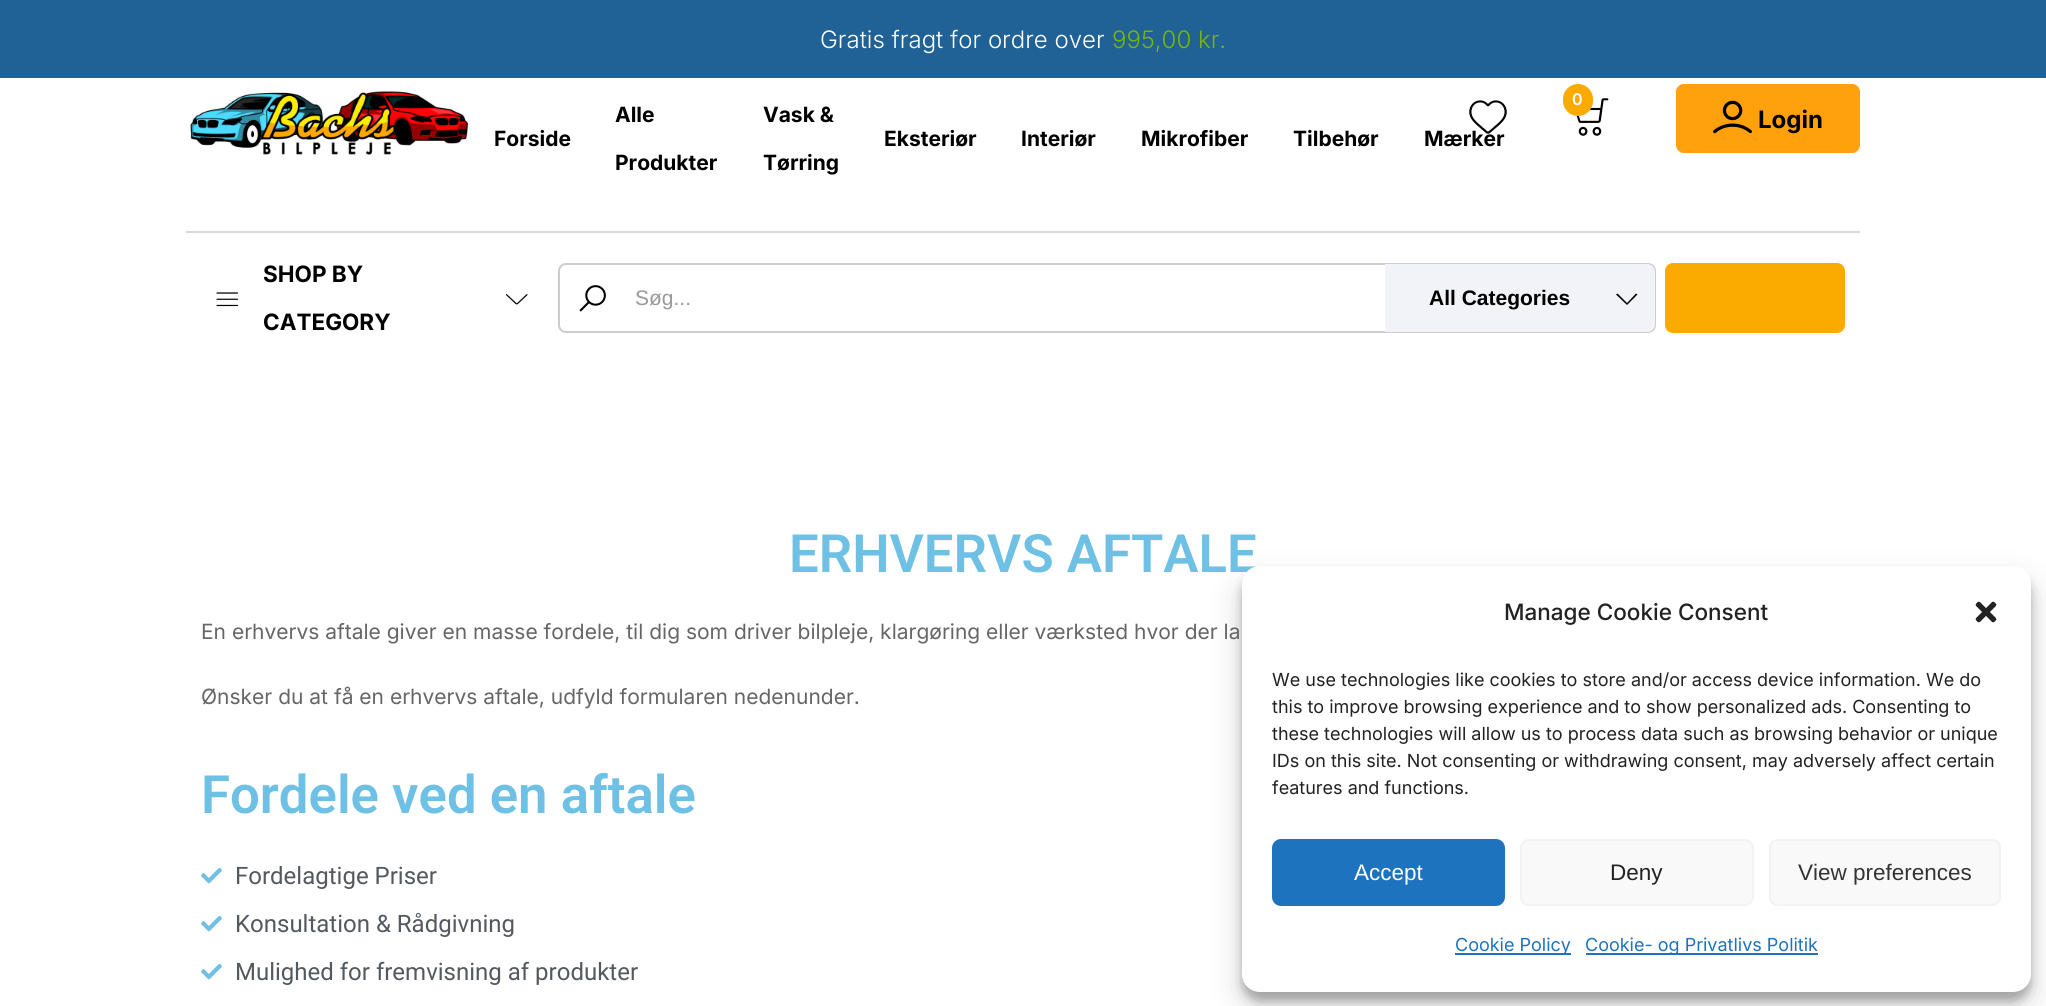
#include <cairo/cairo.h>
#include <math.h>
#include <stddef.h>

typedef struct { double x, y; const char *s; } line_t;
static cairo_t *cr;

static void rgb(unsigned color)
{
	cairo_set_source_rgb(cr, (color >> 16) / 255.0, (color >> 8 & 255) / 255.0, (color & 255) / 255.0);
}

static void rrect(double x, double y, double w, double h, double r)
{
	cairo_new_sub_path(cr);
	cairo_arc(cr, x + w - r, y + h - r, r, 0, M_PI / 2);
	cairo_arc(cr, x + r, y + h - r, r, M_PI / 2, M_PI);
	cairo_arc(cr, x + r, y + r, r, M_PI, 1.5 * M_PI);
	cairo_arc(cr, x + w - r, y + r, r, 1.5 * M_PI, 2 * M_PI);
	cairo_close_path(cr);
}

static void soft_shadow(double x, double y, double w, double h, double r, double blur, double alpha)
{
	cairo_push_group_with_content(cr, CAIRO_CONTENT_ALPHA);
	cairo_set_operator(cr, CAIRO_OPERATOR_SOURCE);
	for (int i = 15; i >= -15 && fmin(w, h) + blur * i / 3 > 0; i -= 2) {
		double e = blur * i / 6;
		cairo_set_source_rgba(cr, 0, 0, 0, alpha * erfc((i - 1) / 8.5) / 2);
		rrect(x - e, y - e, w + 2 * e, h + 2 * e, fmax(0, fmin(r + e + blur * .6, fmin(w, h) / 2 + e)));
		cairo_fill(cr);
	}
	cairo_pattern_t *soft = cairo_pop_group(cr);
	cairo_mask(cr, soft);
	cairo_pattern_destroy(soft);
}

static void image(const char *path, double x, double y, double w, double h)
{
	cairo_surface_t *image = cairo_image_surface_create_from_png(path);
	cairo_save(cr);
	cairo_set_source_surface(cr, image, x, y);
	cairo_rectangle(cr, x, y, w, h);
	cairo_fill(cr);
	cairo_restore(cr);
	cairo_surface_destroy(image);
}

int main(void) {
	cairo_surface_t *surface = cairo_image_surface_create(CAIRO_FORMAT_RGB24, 2046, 1006);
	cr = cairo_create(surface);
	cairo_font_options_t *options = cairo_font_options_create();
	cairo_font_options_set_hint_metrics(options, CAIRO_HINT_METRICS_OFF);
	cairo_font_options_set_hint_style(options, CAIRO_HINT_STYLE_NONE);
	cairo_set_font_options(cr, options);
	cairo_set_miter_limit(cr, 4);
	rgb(0xffffff);
	cairo_paint(cr);
	rgb(0x206296);
	cairo_rectangle(cr, 0, 0, 2046, 78);
	cairo_fill(cr);
	image("img/1.png", 190, 91, 278, 64);
	image("img/3.png", 1576, 98, 33, 38);
	rgb(0xfbab00);
	rrect(1563, 84, 30, 32, 15);
	cairo_fill(cr);
	rgb(0xffa00d);
	rrect(1676, 84, 184, 69, 8);
	cairo_fill(cr);
	image("img/4.png", 1713, 100, 39, 34);
	rgb(0xd9d9d9);
	cairo_rectangle(cr, 186, 231, 1674, 2);
	cairo_fill(cr);
	image("img/5.png", 216, 292, 22, 15);
	image("img/6.png", 506, 294, 22, 11);
	rrect(559, 264, 1096, 68, 7);
	rgb(0xcccccc);
	cairo_stroke(cr);
	image("img/7.png", 579, 285, 27, 27);
	rgb(0xf2f3f8);
	cairo_new_path(cr);
	cairo_move_to(cr, 1385, 264);
	cairo_line_to(cr, 1647, 264);
	cairo_curve_to(cr, 1651.5, 264, 1655, 267.5, 1655, 272);
	cairo_line_to(cr, 1655, 324);
	cairo_curve_to(cr, 1655, 328.5, 1651.5, 332, 1647, 332);
	cairo_line_to(cr, 1385, 332);
	cairo_close_path(cr);
	cairo_fill(cr);
	rgb(0x000000);
	cairo_new_path(cr);
	cairo_move_to(cr, 1617.5, 293.5);
	cairo_line_to(cr, 1616, 294.5);
	cairo_line_to(cr, 1627, 305);
	cairo_line_to(cr, 1637.5, 294.5);
	cairo_line_to(cr, 1636, 293.5);
	cairo_line_to(cr, 1627, 303);
	cairo_close_path(cr);
	cairo_fill(cr);
	rgb(0xfbab00);
	rrect(1665, 263, 180, 70, 8);
	cairo_fill(cr);
	image("img/8.png", 201, 867, 21, 17);
	image("img/8.png", 201, 915, 21, 17);
	image("img/8.png", 201, 963, 21, 17);
	rgb(0x000000);
	soft_shadow(1242, 575, 789, 426, 18, 4.5, 0.23);
	soft_shadow(1242, 581, 789, 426, 18, 15, 0.19);
	cairo_select_font_face(cr, "Inter Light", CAIRO_FONT_SLANT_NORMAL, CAIRO_FONT_WEIGHT_NORMAL);
	cairo_set_font_size(cr, 24);
	rgb(0xffffff);
	cairo_move_to(cr, 820, 48);
	cairo_show_text(cr, "Gratis fragt for ordre over");
	rgb(0x77b508);
	cairo_move_to(cr, 1112, 48);
	cairo_show_text(cr, "995,00 kr.");
	cairo_select_font_face(cr, "Inter", CAIRO_FONT_SLANT_NORMAL, CAIRO_FONT_WEIGHT_BOLD);
	cairo_set_font_size(cr, 21);
	rgb(0x000000);
	{
		static const line_t items[] = {
			{494, 146, "Forside"},
			{615, 122, "Alle"},
			{615, 170, "Produkter"},
			{763, 122, "Vask &"},
			{763, 170, "Tørring"},
			{884, 146, "Eksteriør"},
			{1021, 146, "Interiør"},
			{1141, 146, "Mikrofiber"},
			{1293, 146, "Tilbehør"},
			{1424, 146, "Mærker"},
		};
		for (size_t i = 0; i < sizeof items / sizeof *items; i++) {
			cairo_move_to(cr, items[i].x, items[i].y);
			cairo_show_text(cr, items[i].s);
		}
	}
	image("img/2.png", 1469, 100, 38, 34);
	cairo_select_font_face(cr, "Inter SemiBold", CAIRO_FONT_SLANT_NORMAL, CAIRO_FONT_WEIGHT_NORMAL);
	cairo_set_font_size(cr, 16);
	rgb(0xffffff);
	cairo_move_to(cr, 1572, 105);
	cairo_show_text(cr, "0");
	cairo_select_font_face(cr, "Inter", CAIRO_FONT_SLANT_NORMAL, CAIRO_FONT_WEIGHT_BOLD);
	cairo_set_font_size(cr, 24);
	rgb(0x000000);
	cairo_move_to(cr, 1758, 128);
	cairo_show_text(cr, "Login");
	cairo_set_font_size(cr, 22.5);
	cairo_move_to(cr, 263, 282);
	cairo_show_text(cr, "SHOP BY");
	cairo_move_to(cr, 263, 330);
	cairo_show_text(cr, "CATEGORY");
	cairo_select_font_face(cr, "Liberation Sans", CAIRO_FONT_SLANT_NORMAL, CAIRO_FONT_WEIGHT_NORMAL);
	cairo_set_font_size(cr, 21);
	rgb(0x999999);
	cairo_move_to(cr, 635, 305);
	cairo_show_text(cr, "Søg...");
	cairo_select_font_face(cr, "Liberation Sans", CAIRO_FONT_SLANT_NORMAL, CAIRO_FONT_WEIGHT_BOLD);
	rgb(0x000000);
	cairo_move_to(cr, 1429, 305);
	cairo_show_text(cr, "All Categories");
	cairo_select_font_face(cr, "Roboto SemiBold", CAIRO_FONT_SLANT_NORMAL, CAIRO_FONT_WEIGHT_NORMAL);
	cairo_set_font_size(cr, 52.75);
	rgb(0x6ec1e4);
	cairo_move_to(cr, 789, 572);
	cairo_show_text(cr, "ERHVERVS AFTALE");
	cairo_select_font_face(cr, "Inter", CAIRO_FONT_SLANT_NORMAL, CAIRO_FONT_WEIGHT_NORMAL);
	cairo_set_font_size(cr, 21);
	rgb(0x666666);
	cairo_move_to(cr, 201, 639);
	cairo_show_text(cr, "En erhvervs aftale giver en masse fordele, til dig som driver bilpleje, klargøring eller værksted hvor der la");
	cairo_move_to(cr, 201, 704);
	cairo_show_text(cr, "Ønsker du at få en erhvervs aftale, udfyld formularen nedenunder.");
	cairo_select_font_face(cr, "Roboto SemiBold", CAIRO_FONT_SLANT_NORMAL, CAIRO_FONT_WEIGHT_NORMAL);
	cairo_set_font_size(cr, 52.75);
	rgb(0x6ec1e4);
	cairo_move_to(cr, 201, 813);
	cairo_show_text(cr, "Fordele ved en aftale");
	cairo_select_font_face(cr, "Roboto", CAIRO_FONT_SLANT_NORMAL, CAIRO_FONT_WEIGHT_NORMAL);
	cairo_set_font_size(cr, 24);
	rgb(0x54595f);
	{
		static const line_t items[] = {
			{235, 884, "Fordelagtige Priser"},
			{235, 932, "Konsultation & Rådgivning"},
			{235, 980, "Mulighed for fremvisning af produkter"},
		};
		for (size_t i = 0; i < sizeof items / sizeof *items; i++) {
			cairo_move_to(cr, items[i].x, items[i].y);
			cairo_show_text(cr, items[i].s);
		}
	}
	rgb(0xffffff);
	rrect(1242, 566, 789, 426, 18);
	cairo_fill(cr);
	cairo_select_font_face(cr, "Inter Medium", CAIRO_FONT_SLANT_NORMAL, CAIRO_FONT_WEIGHT_NORMAL);
	cairo_set_font_size(cr, 22.5);
	rgb(0x222222);
	cairo_move_to(cr, 1504, 620);
	cairo_show_text(cr, "Manage Cookie Consent");
	image("img/9.png", 1975, 601, 22, 22);
	cairo_select_font_face(cr, "Inter", CAIRO_FONT_SLANT_NORMAL, CAIRO_FONT_WEIGHT_NORMAL);
	cairo_set_font_size(cr, 18);
	{
		static const line_t items[] = {
			{1272, 686, "We use technologies like cookies to store and/or access device information. We do"},
			{1272, 713, "this to improve browsing experience and to show personalized ads. Consenting to"},
			{1272, 740, "these technologies will allow us to process data such as browsing behavior or unique"},
			{1272, 767, "IDs on this site. Not consenting or withdrawing consent, may adversely affect certain"},
			{1272, 794, "features and functions."},
		};
		for (size_t i = 0; i < sizeof items / sizeof *items; i++) {
			cairo_move_to(cr, items[i].x, items[i].y);
			cairo_show_text(cr, items[i].s);
		}
	}
	rgb(0x1e73be);
	rrect(1273, 840, 231, 65, 8);
	cairo_fill_preserve(cr);
	cairo_stroke(cr);
	cairo_select_font_face(cr, "Liberation Sans", CAIRO_FONT_SLANT_NORMAL, CAIRO_FONT_WEIGHT_NORMAL);
	cairo_set_font_size(cr, 22.5);
	rgb(0xffffff);
	cairo_move_to(cr, 1354, 880);
	cairo_show_text(cr, "Accept");
	rgb(0xf9f9f9);
	rrect(1521, 840, 232, 65, 8);
	cairo_fill_preserve(cr);
	rgb(0xf2f2f2);
	cairo_stroke(cr);
	rgb(0x222222);
	cairo_move_to(cr, 1610, 880);
	cairo_show_text(cr, "Deny");
	rgb(0xf9f9f9);
	rrect(1770, 840, 230, 65, 8);
	cairo_fill_preserve(cr);
	rgb(0xf2f2f2);
	cairo_stroke(cr);
	rgb(0x333333);
	cairo_move_to(cr, 1798, 880);
	cairo_show_text(cr, "View preferences");
	rgb(0x1e73be);
	cairo_rectangle(cr, 1455, 953, 116, 2);
	cairo_fill(cr);
	cairo_select_font_face(cr, "Inter", CAIRO_FONT_SLANT_NORMAL, CAIRO_FONT_WEIGHT_NORMAL);
	cairo_set_font_size(cr, 18);
	cairo_move_to(cr, 1455, 951);
	cairo_show_text(cr, "Cookie Policy");
	cairo_rectangle(cr, 1586, 953, 232, 2);
	cairo_fill(cr);
	cairo_move_to(cr, 1585, 951);
	cairo_show_text(cr, "Cookie- og Privatlivs Politik");
	cairo_surface_write_to_png(surface, "page.png");
	cairo_font_options_destroy(options);
	cairo_destroy(cr);
	cairo_surface_destroy(surface);
	return 0;
}
